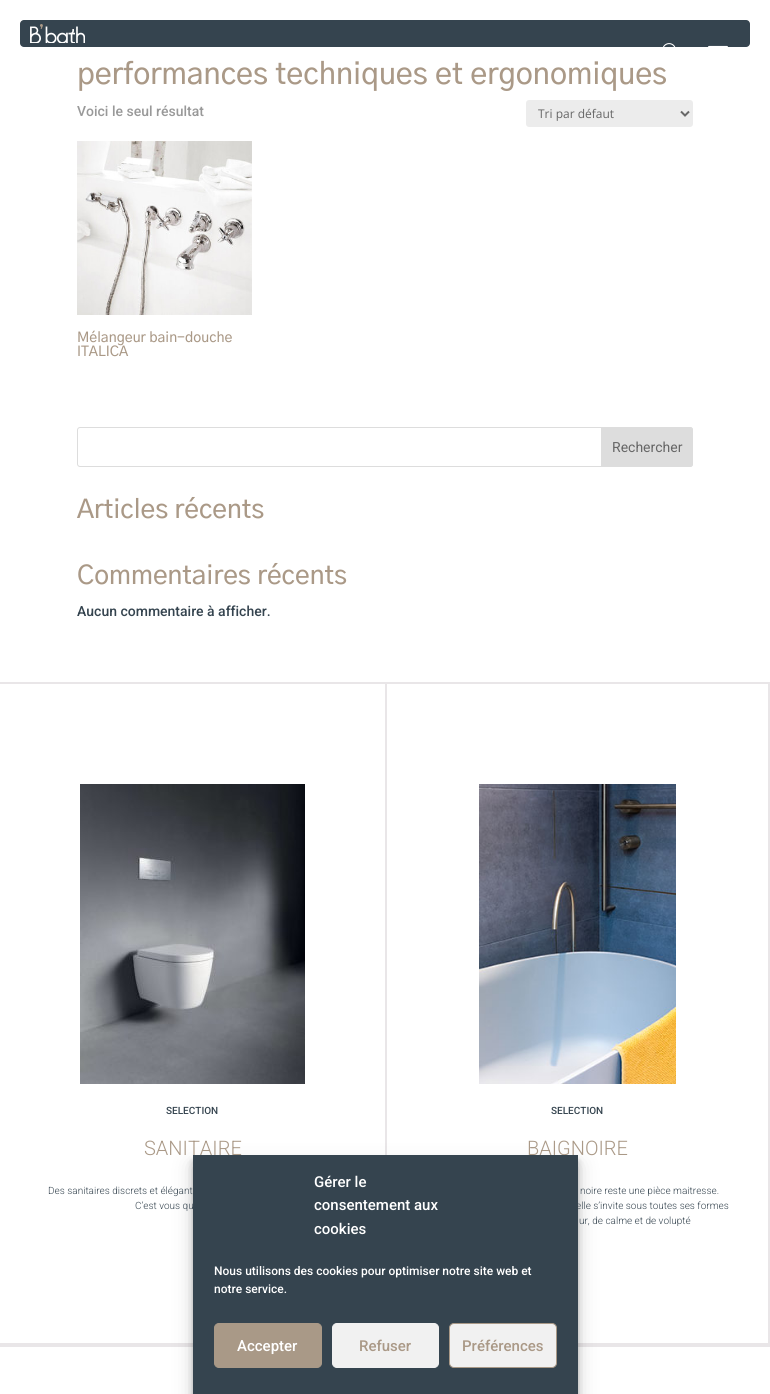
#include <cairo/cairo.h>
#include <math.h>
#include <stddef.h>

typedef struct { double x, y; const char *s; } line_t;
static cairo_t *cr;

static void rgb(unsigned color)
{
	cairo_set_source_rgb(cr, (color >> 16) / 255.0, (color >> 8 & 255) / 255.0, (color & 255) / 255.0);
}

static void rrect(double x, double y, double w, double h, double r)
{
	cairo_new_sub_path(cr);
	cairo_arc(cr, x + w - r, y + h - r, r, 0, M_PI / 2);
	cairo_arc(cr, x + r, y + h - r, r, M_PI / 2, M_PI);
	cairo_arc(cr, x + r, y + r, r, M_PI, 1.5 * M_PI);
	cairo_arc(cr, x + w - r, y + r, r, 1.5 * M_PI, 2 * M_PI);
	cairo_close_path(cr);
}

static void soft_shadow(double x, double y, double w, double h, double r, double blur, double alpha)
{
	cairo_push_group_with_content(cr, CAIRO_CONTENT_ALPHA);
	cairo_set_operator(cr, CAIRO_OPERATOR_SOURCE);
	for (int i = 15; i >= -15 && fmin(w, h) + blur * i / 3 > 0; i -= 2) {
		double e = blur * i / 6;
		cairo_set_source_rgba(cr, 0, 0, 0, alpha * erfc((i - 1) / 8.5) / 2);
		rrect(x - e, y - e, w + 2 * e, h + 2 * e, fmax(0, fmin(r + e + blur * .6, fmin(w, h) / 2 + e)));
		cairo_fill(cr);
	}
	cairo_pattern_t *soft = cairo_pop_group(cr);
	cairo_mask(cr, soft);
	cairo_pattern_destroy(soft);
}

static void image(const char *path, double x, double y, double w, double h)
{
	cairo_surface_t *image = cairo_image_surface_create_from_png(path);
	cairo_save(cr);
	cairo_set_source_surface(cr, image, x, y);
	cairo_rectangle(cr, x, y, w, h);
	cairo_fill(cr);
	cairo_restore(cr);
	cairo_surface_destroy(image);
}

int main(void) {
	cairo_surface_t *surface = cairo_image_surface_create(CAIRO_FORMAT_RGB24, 770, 1394);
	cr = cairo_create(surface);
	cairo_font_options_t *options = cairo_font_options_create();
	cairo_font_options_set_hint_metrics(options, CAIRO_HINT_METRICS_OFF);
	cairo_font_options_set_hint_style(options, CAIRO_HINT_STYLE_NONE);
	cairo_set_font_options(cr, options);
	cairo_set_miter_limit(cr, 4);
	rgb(0xffffff);
	cairo_paint(cr);
	rgb(0x35444f);
	rrect(20, 20, 730, 27, 4);
	cairo_fill(cr);
	image("img/1.png", 30, 24, 55, 19);
	image("img/2.png", 663, 43, 13, 4);
	image("img/3.png", 708, 45, 20, 2);
	rgb(0xececec);
	rrect(526, 100, 167, 27, 3);
	cairo_fill(cr);
	cairo_new_path(cr);
	cairo_move_to(cr, 681, 111.5);
	cairo_line_to(cr, 685, 115.5);
	cairo_line_to(cr, 689, 111.5);
	rgb(0x666666);
	cairo_stroke(cr);
	image("img/4.png", 77, 141, 175, 174);
	rrect(77.5, 427.5, 615, 39, 2.5);
	rgb(0xdddddd);
	cairo_set_line_width(cr, 1);
	cairo_stroke(cr);
	cairo_new_path(cr);
	cairo_move_to(cr, 601.5, 427.5);
	cairo_line_to(cr, 690, 427.5);
	cairo_curve_to(cr, 691.5, 427.5, 692.5, 428.5, 692.5, 430);
	cairo_line_to(cr, 692.5, 464);
	cairo_curve_to(cr, 692.5, 465.5, 691.5, 466.5, 690, 466.5);
	cairo_line_to(cr, 601.5, 466.5);
	cairo_close_path(cr);
	cairo_fill_preserve(cr);
	cairo_stroke(cr);
	rgb(0xe9e6e8);
	cairo_rectangle(cr, 0, 682, 385, 2);
	cairo_fill(cr);
	cairo_rectangle(cr, 0, 1343, 193, 4);
	cairo_fill(cr);
	image("img/5.png", 80, 784, 225, 300);
	cairo_rectangle(cr, 386, 683, 383, 661);
	cairo_set_line_width(cr, 2);
	cairo_stroke(cr);
	image("img/6.png", 479, 784, 197, 300);
	cairo_rectangle(cr, 578, 1345, 192, 2);
	cairo_fill(cr);
	rgb(0x000000);
	soft_shadow(193, 1161, 385, 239, 0, 3, 0.23);
	soft_shadow(193, 1165, 385, 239, 0, 10, 0.19);
	cairo_select_font_face(cr, "Gothic A1 Medium", CAIRO_FONT_SLANT_NORMAL, CAIRO_FONT_WEIGHT_NORMAL);
	cairo_set_font_size(cr, 30);
	rgb(0xaa9987);
	cairo_move_to(cr, 77, 84);
	cairo_show_text(cr, "performances techniques et ergonomiques");
	cairo_select_font_face(cr, "Roboto Medium", CAIRO_FONT_SLANT_NORMAL, CAIRO_FONT_WEIGHT_NORMAL);
	cairo_set_font_size(cr, 14);
	rgb(0x999999);
	cairo_move_to(cr, 77, 116);
	cairo_show_text(cr, "Voici le seul résultat");
	cairo_select_font_face(cr, "Open Sans", CAIRO_FONT_SLANT_NORMAL, CAIRO_FONT_WEIGHT_NORMAL);
	cairo_set_font_size(cr, 12);
	rgb(0x666666);
	cairo_move_to(cr, 538, 118);
	cairo_show_text(cr, "Tri par défaut");
	cairo_select_font_face(cr, "Gothic A1 Medium", CAIRO_FONT_SLANT_NORMAL, CAIRO_FONT_WEIGHT_NORMAL);
	cairo_set_font_size(cr, 14);
	rgb(0xaa9987);
	cairo_move_to(cr, 77, 342);
	cairo_show_text(cr, "Mélangeur bain-douche");
	cairo_move_to(cr, 77, 356);
	cairo_show_text(cr, "ITALICA");
	cairo_select_font_face(cr, "Roboto", CAIRO_FONT_SLANT_NORMAL, CAIRO_FONT_WEIGHT_NORMAL);
	rgb(0x666666);
	cairo_move_to(cr, 612, 452);
	cairo_show_text(cr, "Rechercher");
	cairo_select_font_face(cr, "Gothic A1 Medium", CAIRO_FONT_SLANT_NORMAL, CAIRO_FONT_WEIGHT_NORMAL);
	cairo_set_font_size(cr, 26);
	rgb(0xaa9987);
	cairo_move_to(cr, 77, 518);
	cairo_show_text(cr, "Articles récents");
	cairo_move_to(cr, 77, 584);
	cairo_show_text(cr, "Commentaires récents");
	cairo_select_font_face(cr, "Roboto Medium", CAIRO_FONT_SLANT_NORMAL, CAIRO_FONT_WEIGHT_NORMAL);
	cairo_set_font_size(cr, 14);
	rgb(0x35444f);
	cairo_move_to(cr, 77, 616);
	cairo_show_text(cr, "Aucun commentaire à afficher.");
	cairo_set_font_size(cr, 10);
	cairo_move_to(cr, 166, 1114);
	cairo_show_text(cr, "SELECTION");
	cairo_select_font_face(cr, "Roboto Light", CAIRO_FONT_SLANT_NORMAL, CAIRO_FONT_WEIGHT_NORMAL);
	cairo_set_font_size(cr, 20);
	rgb(0xaa9987);
	cairo_move_to(cr, 144, 1155);
	cairo_show_text(cr, "SANITAIRE");
	cairo_set_font_size(cr, 10);
	rgb(0x35444f);
	cairo_move_to(cr, 48, 1194);
	cairo_show_text(cr, "Des sanitaires discrets et élégant");
	cairo_move_to(cr, 135, 1209);
	cairo_show_text(cr, "C’est vous qu");
	cairo_select_font_face(cr, "Roboto Medium", CAIRO_FONT_SLANT_NORMAL, CAIRO_FONT_WEIGHT_NORMAL);
	cairo_move_to(cr, 551, 1114);
	cairo_show_text(cr, "SELECTION");
	cairo_select_font_face(cr, "Roboto Light", CAIRO_FONT_SLANT_NORMAL, CAIRO_FONT_WEIGHT_NORMAL);
	cairo_set_font_size(cr, 20);
	rgb(0xaa9987);
	cairo_move_to(cr, 527, 1155);
	cairo_show_text(cr, "BAIGNOIRE");
	cairo_set_font_size(cr, 10);
	rgb(0x35444f);
	{
		static const line_t items[] = {
			{580, 1194, "noire reste une pièce maitresse."},
			{576, 1209, "elle s’invite sous toutes ses formes"},
			{579, 1224, "ur, de calme et de volupté"},
		};
		for (size_t i = 0; i < sizeof items / sizeof *items; i++) {
			cairo_move_to(cr, items[i].x, items[i].y);
			cairo_show_text(cr, items[i].s);
		}
	}
	cairo_rectangle(cr, 193, 1155, 385, 239);
	cairo_fill(cr);
	cairo_select_font_face(cr, "Roboto Medium", CAIRO_FONT_SLANT_NORMAL, CAIRO_FONT_WEIGHT_NORMAL);
	cairo_set_font_size(cr, 15);
	rgb(0xffffff);
	{
		static const line_t items[] = {
			{314, 1187, "Gérer le"},
			{314, 1210, "consentement aux"},
			{314, 1234, "cookies"},
		};
		for (size_t i = 0; i < sizeof items / sizeof *items; i++) {
			cairo_move_to(cr, items[i].x, items[i].y);
			cairo_show_text(cr, items[i].s);
		}
	}
	cairo_set_font_size(cr, 12);
	cairo_move_to(cr, 214, 1275);
	cairo_show_text(cr, "Nous utilisons des cookies pour optimiser notre site web et");
	cairo_move_to(cr, 214, 1293);
	cairo_show_text(cr, "notre service.");
	rgb(0xa99987);
	rrect(214.5, 1323.5, 107, 44, 4.5);
	cairo_fill_preserve(cr);
	cairo_set_line_width(cr, 1);
	cairo_stroke(cr);
	cairo_set_font_size(cr, 15);
	rgb(0xffffff);
	cairo_move_to(cr, 237, 1351);
	cairo_show_text(cr, "Accepter");
	rgb(0xf1f1f1);
	rrect(332.5, 1323.5, 106, 44, 4.5);
	cairo_fill_preserve(cr);
	cairo_stroke(cr);
	rgb(0xaa9987);
	cairo_move_to(cr, 359, 1351);
	cairo_show_text(cr, "Refuser");
	rgb(0xf1f1f1);
	rrect(449.5, 1323.5, 107, 44, 4.5);
	cairo_fill_preserve(cr);
	rgb(0xa99987);
	cairo_stroke(cr);
	rgb(0xaa9987);
	cairo_move_to(cr, 462, 1351);
	cairo_show_text(cr, "Préférences");
	cairo_surface_write_to_png(surface, "page.png");
	cairo_font_options_destroy(options);
	cairo_destroy(cr);
	cairo_surface_destroy(surface);
	return 0;
}
